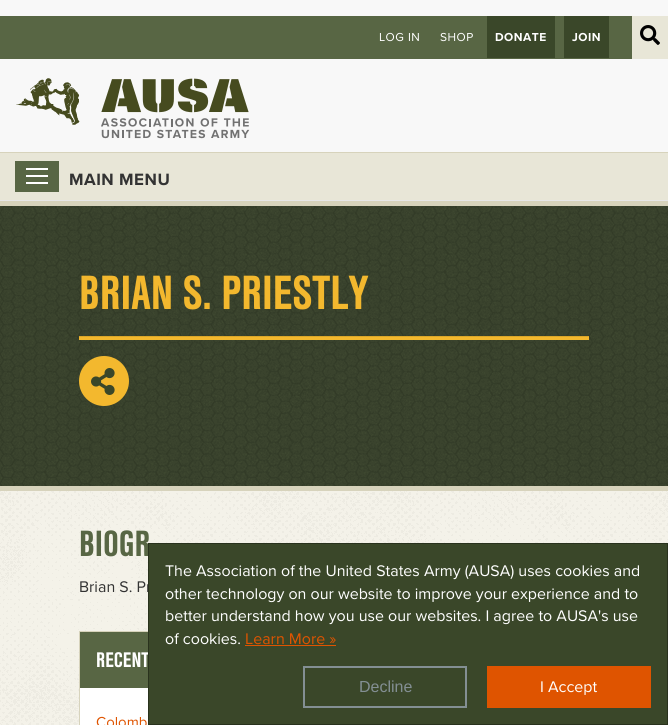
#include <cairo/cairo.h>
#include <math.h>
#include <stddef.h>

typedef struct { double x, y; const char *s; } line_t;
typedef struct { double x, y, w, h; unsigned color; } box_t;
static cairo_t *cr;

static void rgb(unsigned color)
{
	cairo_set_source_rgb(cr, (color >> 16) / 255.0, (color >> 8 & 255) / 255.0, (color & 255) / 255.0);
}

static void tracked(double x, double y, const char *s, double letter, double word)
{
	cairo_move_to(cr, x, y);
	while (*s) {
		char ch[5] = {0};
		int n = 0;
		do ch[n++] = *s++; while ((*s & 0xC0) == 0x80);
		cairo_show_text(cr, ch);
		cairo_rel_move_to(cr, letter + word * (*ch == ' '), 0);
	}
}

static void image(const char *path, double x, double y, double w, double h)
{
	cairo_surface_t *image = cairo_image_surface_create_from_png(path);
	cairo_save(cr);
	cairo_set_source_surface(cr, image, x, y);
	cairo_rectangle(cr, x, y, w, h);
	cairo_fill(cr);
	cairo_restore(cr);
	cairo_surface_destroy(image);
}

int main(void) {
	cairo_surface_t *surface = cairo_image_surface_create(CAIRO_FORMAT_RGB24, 668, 725);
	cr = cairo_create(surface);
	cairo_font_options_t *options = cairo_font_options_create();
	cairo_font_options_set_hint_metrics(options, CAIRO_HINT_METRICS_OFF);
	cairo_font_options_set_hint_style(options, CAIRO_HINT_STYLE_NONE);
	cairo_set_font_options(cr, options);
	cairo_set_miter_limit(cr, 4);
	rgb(0xffffff);
	cairo_paint(cr);
	{
		static const box_t items[] = {
			{0, 0, 668, 152, 0xf8f8f8},
			{0, 16, 632, 43, 0x586644},
			{487, 16, 68, 42, 0x3a4729},
			{564, 16, 45, 42, 0x3a4729},
			{632, 16, 36, 43, 0xe8e6d7},
		};
		for (size_t i = 0; i < sizeof items / sizeof *items; i++) {
			rgb(items[i].color);
			cairo_rectangle(cr, items[i].x, items[i].y, items[i].w, items[i].h);
			cairo_fill(cr);
		}
	}
	image("img/1.png", 640, 25, 20, 20);
	image("img/2.png", 16, 78, 64, 47);
	image("img/3.png", 101, 78, 149, 61);
	{
		static const box_t items[] = {
			{0, 153, 668, 47, 0xe8e6d7},
			{0, 152, 668, 1, 0xd7d3bc},
			{0, 201, 668, 5, 0xd7d3bc},
			{15, 161, 44, 31, 0x586644},
			{26, 168, 22, 2, 0xffffff},
			{26, 175, 22, 2, 0xffffff},
			{26, 182, 22, 2, 0xffffff},
			{0, 200, 668, 1, 0xe7e7e7},
		};
		for (size_t i = 0; i < sizeof items / sizeof *items; i++) {
			rgb(items[i].color);
			cairo_rectangle(cr, items[i].x, items[i].y, items[i].w, items[i].h);
			cairo_fill(cr);
		}
	}
	image("img/4.png", 0, 206, 668, 280);
	{
		static const box_t items[] = {
			{0, 486, 668, 5, 0xd7d3bc},
			{79, 337, 510, 3, 0xf3b82e},
			{79, 336, 510, 1, 0xdba629},
		};
		for (size_t i = 0; i < sizeof items / sizeof *items; i++) {
			rgb(items[i].color);
			cairo_rectangle(cr, items[i].x, items[i].y, items[i].w, items[i].h);
			cairo_fill(cr);
		}
	}
	rgb(0xf3b82e);
	cairo_arc(cr, 104, 381, 25, 0, 2 * M_PI);
	cairo_fill(cr);
	image("img/5.png", 91, 368, 24, 27);
	image("img/6.png", 0, 491, 668, 234);
	rgb(0xffffff);
	cairo_rectangle(cr, 80, 688, 68, 37);
	cairo_fill(cr);
	cairo_rectangle(cr, 79.5, 631.5, 509, 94);
	rgb(0xd7d3bc);
	cairo_set_line_width(cr, 1);
	cairo_stroke(cr);
	rgb(0x586644);
	cairo_rectangle(cr, 80, 632, 68, 56);
	cairo_fill(cr);
	cairo_select_font_face(cr, "Proxima Nova", CAIRO_FONT_SLANT_NORMAL, CAIRO_FONT_WEIGHT_NORMAL);
	cairo_set_font_size(cr, 12);
	rgb(0xffffff);
	tracked(379, 41, "LOG IN", 0.5, 0);
	tracked(440, 41, "SHOP", 0.5, 0);
	cairo_select_font_face(cr, "Proxima Nova", CAIRO_FONT_SLANT_NORMAL, CAIRO_FONT_WEIGHT_BOLD);
	tracked(495, 41, "DONATE", 0.5, 0);
	tracked(572, 41, "JOIN", 0.5, 0);
	cairo_set_font_size(cr, 17);
	rgb(0x333333);
	tracked(69, 185, "MAIN MENU", 0.5, 0);
	cairo_select_font_face(cr, "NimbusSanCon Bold", CAIRO_FONT_SLANT_NORMAL, CAIRO_FONT_WEIGHT_BOLD);
	cairo_set_font_size(cr, 50);
	rgb(0xf3b82e);
	cairo_move_to(cr, 79, 309);
	cairo_show_text(cr, "BRIAN S. PRIESTLY");
	cairo_set_font_size(cr, 38);
	rgb(0x586644);
	cairo_move_to(cr, 79, 556);
	cairo_show_text(cr, "BIOGR");
	cairo_select_font_face(cr, "Proxima Nova", CAIRO_FONT_SLANT_NORMAL, CAIRO_FONT_WEIGHT_NORMAL);
	cairo_set_font_size(cr, 16);
	rgb(0x333333);
	cairo_move_to(cr, 79, 592);
	cairo_show_text(cr, "Brian S. Pr");
	cairo_select_font_face(cr, "NimbusSanCon Bold", CAIRO_FONT_SLANT_NORMAL, CAIRO_FONT_WEIGHT_BOLD);
	cairo_set_font_size(cr, 22);
	rgb(0xffffff);
	cairo_move_to(cr, 96, 667);
	cairo_show_text(cr, "RECENT");
	cairo_select_font_face(cr, "Proxima Nova", CAIRO_FONT_SLANT_NORMAL, CAIRO_FONT_WEIGHT_NORMAL);
	cairo_set_font_size(cr, 15);
	rgb(0xdf5400);
	cairo_move_to(cr, 96, 727);
	cairo_show_text(cr, "Colomb");
	rgb(0x3a4729);
	cairo_rectangle(cr, 148.5, 543.5, 519, 181);
	cairo_fill_preserve(cr);
	rgb(0x29321d);
	cairo_stroke(cr);
	cairo_set_font_size(cr, 16);
	rgb(0xffffff);
	{
		static const line_t items[] = {
			{165, 576, "The Association of the United States Army (AUSA) uses cookies and"},
			{165, 599, "other technology on our website to improve your experience and to"},
			{165, 621, "better understand how you use our websites. I agree to AUSA's use"},
			{165, 644, "of cookies."},
		};
		for (size_t i = 0; i < sizeof items / sizeof *items; i++) {
			cairo_move_to(cr, items[i].x, items[i].y);
			cairo_show_text(cr, items[i].s);
		}
	}
	rgb(0xdf5400);
	cairo_move_to(cr, 245, 644);
	cairo_show_text(cr, "Learn More »");
	cairo_rectangle(cr, 245, 645, 91, 1);
	cairo_fill(cr);
	cairo_rectangle(cr, 304, 667, 162, 40);
	rgb(0x838f93);
	cairo_set_line_width(cr, 2);
	cairo_stroke(cr);
	cairo_select_font_face(cr, "Liberation Sans", CAIRO_FONT_SLANT_NORMAL, CAIRO_FONT_WEIGHT_NORMAL);
	cairo_move_to(cr, 359, 692);
	cairo_show_text(cr, "Decline");
	rgb(0xdf5400);
	cairo_rectangle(cr, 487, 666, 164, 42);
	cairo_fill(cr);
	cairo_select_font_face(cr, "Proxima Nova", CAIRO_FONT_SLANT_NORMAL, CAIRO_FONT_WEIGHT_NORMAL);
	rgb(0xffffff);
	cairo_move_to(cr, 540, 692);
	cairo_show_text(cr, "I Accept");
	cairo_surface_write_to_png(surface, "page.png");
	cairo_font_options_destroy(options);
	cairo_destroy(cr);
	cairo_surface_destroy(surface);
	return 0;
}
